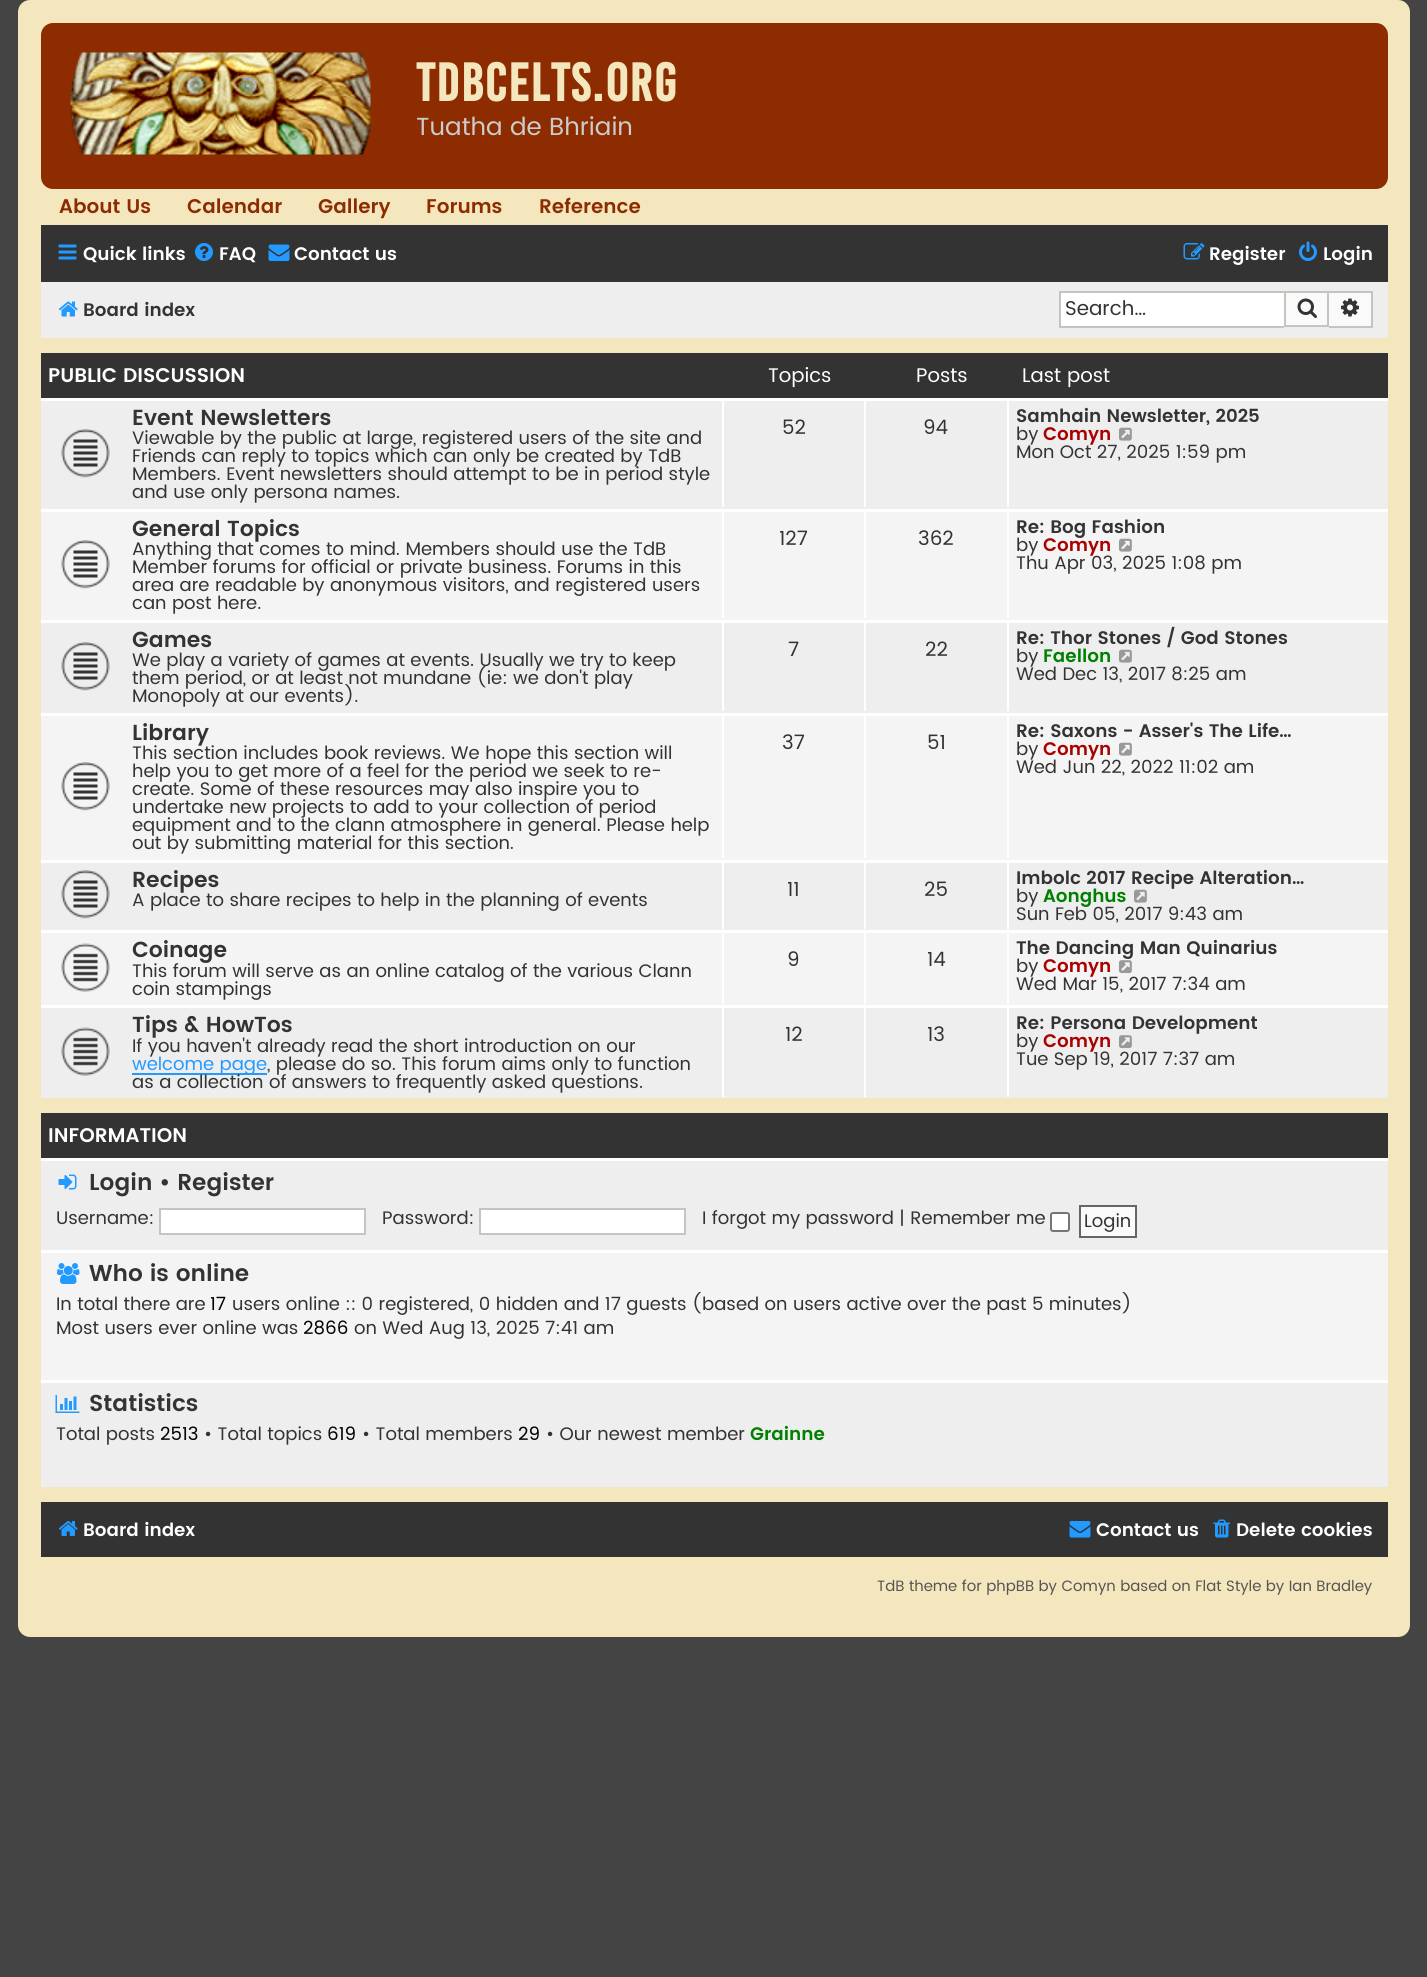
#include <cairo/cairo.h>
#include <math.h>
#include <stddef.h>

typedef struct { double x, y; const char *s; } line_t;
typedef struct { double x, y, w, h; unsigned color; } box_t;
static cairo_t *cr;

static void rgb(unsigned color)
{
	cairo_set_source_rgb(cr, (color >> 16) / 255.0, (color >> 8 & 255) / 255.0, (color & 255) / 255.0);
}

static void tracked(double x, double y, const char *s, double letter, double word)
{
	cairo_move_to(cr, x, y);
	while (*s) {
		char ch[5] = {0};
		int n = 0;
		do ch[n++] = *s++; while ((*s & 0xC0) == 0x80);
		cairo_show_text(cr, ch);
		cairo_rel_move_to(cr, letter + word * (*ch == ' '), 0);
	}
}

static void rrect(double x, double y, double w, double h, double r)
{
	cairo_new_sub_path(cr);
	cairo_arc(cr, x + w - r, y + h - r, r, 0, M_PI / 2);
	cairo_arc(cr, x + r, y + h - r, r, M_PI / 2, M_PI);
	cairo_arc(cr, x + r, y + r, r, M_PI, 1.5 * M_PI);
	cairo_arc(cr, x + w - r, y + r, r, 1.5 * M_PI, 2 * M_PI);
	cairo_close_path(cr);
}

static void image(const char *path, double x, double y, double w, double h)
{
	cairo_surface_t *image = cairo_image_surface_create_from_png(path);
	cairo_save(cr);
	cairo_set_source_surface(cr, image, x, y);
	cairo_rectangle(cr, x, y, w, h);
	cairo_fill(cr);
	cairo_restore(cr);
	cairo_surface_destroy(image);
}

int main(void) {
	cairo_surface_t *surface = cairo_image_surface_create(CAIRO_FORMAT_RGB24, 1427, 1977);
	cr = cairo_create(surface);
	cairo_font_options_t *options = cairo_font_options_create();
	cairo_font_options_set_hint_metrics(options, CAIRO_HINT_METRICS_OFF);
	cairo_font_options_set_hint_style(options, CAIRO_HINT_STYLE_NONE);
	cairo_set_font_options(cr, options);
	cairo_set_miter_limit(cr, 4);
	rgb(0x444444);
	cairo_paint(cr);
	rgb(0xf4e7bd);
	rrect(18, 0, 1392, 1637, 12);
	cairo_fill(cr);
	rgb(0x8c2c00);
	rrect(41, 23, 1347, 166, 12);
	cairo_fill(cr);
	image("img/1.png", 70, 52, 301, 103);
	rgb(0x333333);
	cairo_rectangle(cr, 41, 225, 1347, 57);
	cairo_fill(cr);
	image("img/2.png", 58, 244, 19, 16);
	image("img/3.png", 195, 243, 18, 18);
	image("img/4.png", 268, 244, 22, 17);
	image("img/5.png", 1183, 243, 22, 17);
	image("img/6.png", 1299, 241, 18, 20);
	rgb(0xeeeeee);
	cairo_rectangle(cr, 41, 282, 1347, 56);
	cairo_fill(cr);
	image("img/7.png", 58, 301, 20, 16);
	{
		static const box_t items[] = {
			{1061, 293, 223, 33, 0xffffff},
			{1059, 291, 225, 2, 0xc7c3bf},
			{1059, 326, 225, 2, 0xc7c3bf},
			{1059, 291, 2, 36, 0xc7c3bf},
		};
		for (size_t i = 0; i < sizeof items / sizeof *items; i++) {
			rgb(items[i].color);
			cairo_rectangle(cr, items[i].x, items[i].y, items[i].w, items[i].h);
			cairo_fill(cr);
		}
	}
	rgb(0xfafafa);
	cairo_rectangle(cr, 1285, 292, 43, 34);
	cairo_fill_preserve(cr);
	rgb(0xc7c3bf);
	cairo_stroke(cr);
	image("img/8.png", 1297, 298, 20, 20);
	{
		static const box_t items[] = {
			{1329, 293, 42, 33, 0xfafafa},
			{1329, 291, 44, 2, 0xc7c3bf},
			{1371, 291, 2, 36, 0xc7c3bf},
			{1329, 326, 44, 2, 0xc7c3bf},
		};
		for (size_t i = 0; i < sizeof items / sizeof *items; i++) {
			rgb(items[i].color);
			cairo_rectangle(cr, items[i].x, items[i].y, items[i].w, items[i].h);
			cairo_fill(cr);
		}
	}
	image("img/9.png", 1341, 298, 18, 19);
	{
		static const box_t items[] = {
			{41, 353, 1347, 45, 0x333333},
			{41, 401, 1347, 697, 0xeeeeee},
			{41, 398, 1347, 3, 0xffffff},
		};
		for (size_t i = 0; i < sizeof items / sizeof *items; i++) {
			rgb(items[i].color);
			cairo_rectangle(cr, items[i].x, items[i].y, items[i].w, items[i].h);
			cairo_fill(cr);
		}
	}
	image("img/10.png", 61, 429, 49, 49);
	{
		static const box_t items[] = {
			{722, 401, 2, 106, 0xffffff},
			{864, 401, 2, 106, 0xffffff},
			{1007, 401, 2, 106, 0xffffff},
		};
		for (size_t i = 0; i < sizeof items / sizeof *items; i++) {
			rgb(items[i].color);
			cairo_rectangle(cr, items[i].x, items[i].y, items[i].w, items[i].h);
			cairo_fill(cr);
		}
	}
	image("img/11.png", 1119, 427, 13, 14);
	rgb(0xf4f4f4);
	cairo_rectangle(cr, 41, 512, 1347, 108);
	cairo_fill(cr);
	rgb(0xffffff);
	cairo_rectangle(cr, 41, 509, 1347, 3);
	cairo_fill(cr);
	image("img/12.png", 61, 540, 49, 49);
	{
		static const box_t items[] = {
			{722, 512, 2, 106, 0xffffff},
			{864, 512, 2, 106, 0xffffff},
			{1007, 512, 2, 106, 0xffffff},
		};
		for (size_t i = 0; i < sizeof items / sizeof *items; i++) {
			rgb(items[i].color);
			cairo_rectangle(cr, items[i].x, items[i].y, items[i].w, items[i].h);
			cairo_fill(cr);
		}
	}
	image("img/13.png", 1119, 538, 13, 14);
	cairo_rectangle(cr, 41, 620, 1347, 3);
	cairo_fill(cr);
	image("img/10.png", 61, 642, 49, 49);
	{
		static const box_t items[] = {
			{722, 623, 2, 88, 0xffffff},
			{864, 623, 2, 88, 0xffffff},
			{1007, 623, 2, 88, 0xffffff},
		};
		for (size_t i = 0; i < sizeof items / sizeof *items; i++) {
			rgb(items[i].color);
			cairo_rectangle(cr, items[i].x, items[i].y, items[i].w, items[i].h);
			cairo_fill(cr);
		}
	}
	image("img/11.png", 1119, 649, 13, 14);
	rgb(0xf4f4f4);
	cairo_rectangle(cr, 41, 716, 1347, 144);
	cairo_fill(cr);
	rgb(0xffffff);
	cairo_rectangle(cr, 41, 713, 1347, 3);
	cairo_fill(cr);
	image("img/12.png", 61, 762, 49, 49);
	{
		static const box_t items[] = {
			{722, 716, 2, 142, 0xffffff},
			{864, 716, 2, 142, 0xffffff},
			{1007, 716, 2, 142, 0xffffff},
		};
		for (size_t i = 0; i < sizeof items / sizeof *items; i++) {
			rgb(items[i].color);
			cairo_rectangle(cr, items[i].x, items[i].y, items[i].w, items[i].h);
			cairo_fill(cr);
		}
	}
	image("img/13.png", 1119, 742, 13, 14);
	cairo_rectangle(cr, 41, 860, 1347, 3);
	cairo_fill(cr);
	image("img/10.png", 61, 870, 49, 49);
	{
		static const box_t items[] = {
			{722, 863, 2, 66, 0xffffff},
			{864, 863, 2, 66, 0xffffff},
			{1007, 863, 2, 66, 0xffffff},
		};
		for (size_t i = 0; i < sizeof items / sizeof *items; i++) {
			rgb(items[i].color);
			cairo_rectangle(cr, items[i].x, items[i].y, items[i].w, items[i].h);
			cairo_fill(cr);
		}
	}
	image("img/11.png", 1134, 889, 13, 14);
	rgb(0xf4f4f4);
	cairo_rectangle(cr, 41, 933, 1347, 72);
	cairo_fill(cr);
	rgb(0xffffff);
	cairo_rectangle(cr, 41, 930, 1347, 3);
	cairo_fill(cr);
	image("img/14.png", 61, 943, 49, 49);
	{
		static const box_t items[] = {
			{722, 933, 2, 71, 0xffffff},
			{864, 933, 2, 71, 0xffffff},
			{1007, 933, 2, 71, 0xffffff},
		};
		for (size_t i = 0; i < sizeof items / sizeof *items; i++) {
			rgb(items[i].color);
			cairo_rectangle(cr, items[i].x, items[i].y, items[i].w, items[i].h);
			cairo_fill(cr);
		}
	}
	image("img/15.png", 1119, 960, 13, 14);
	cairo_rectangle(cr, 41, 1005, 1347, 3);
	cairo_fill(cr);
	image("img/16.png", 61, 1027, 49, 49);
	{
		static const box_t items[] = {
			{132, 1073, 135, 2, 0x239aff},
			{722, 1008, 2, 89, 0xffffff},
			{864, 1008, 2, 89, 0xffffff},
			{1007, 1008, 2, 89, 0xffffff},
		};
		for (size_t i = 0; i < sizeof items / sizeof *items; i++) {
			rgb(items[i].color);
			cairo_rectangle(cr, items[i].x, items[i].y, items[i].w, items[i].h);
			cairo_fill(cr);
		}
	}
	image("img/17.png", 1119, 1035, 13, 14);
	{
		static const box_t items[] = {
			{41, 1113, 1347, 45, 0x333333},
			{41, 1161, 1347, 326, 0xeeeeee},
			{41, 1158, 1347, 3, 0xffffff},
		};
		for (size_t i = 0; i < sizeof items / sizeof *items; i++) {
			rgb(items[i].color);
			cairo_rectangle(cr, items[i].x, items[i].y, items[i].w, items[i].h);
			cairo_fill(cr);
		}
	}
	image("img/18.png", 58, 1174, 19, 16);
	cairo_rectangle(cr, 160, 1209, 205, 25);
	cairo_fill_preserve(cr);
	rgb(0xc7c3bf);
	cairo_stroke(cr);
	rgb(0xffffff);
	cairo_rectangle(cr, 480, 1209, 205, 25);
	cairo_fill_preserve(cr);
	rgb(0xc7c3bf);
	cairo_stroke(cr);
	rgb(0xffffff);
	rrect(1051, 1213, 18, 18, 2);
	cairo_fill_preserve(cr);
	rgb(0x767676);
	cairo_stroke(cr);
	rgb(0xfafafa);
	cairo_rectangle(cr, 1080, 1206, 56, 31);
	cairo_fill_preserve(cr);
	rgb(0x666666);
	cairo_stroke(cr);
	rgb(0xf4f4f4);
	cairo_rectangle(cr, 41, 1253, 1347, 127);
	cairo_fill(cr);
	rgb(0xffffff);
	cairo_rectangle(cr, 41, 1250, 1347, 3);
	cairo_fill(cr);
	image("img/19.png", 57, 1263, 23, 21);
	cairo_rectangle(cr, 41, 1380, 1347, 3);
	cairo_fill(cr);
	image("img/20.png", 55, 1395, 25, 18);
	rgb(0x333333);
	cairo_rectangle(cr, 41, 1502, 1347, 55);
	cairo_fill(cr);
	image("img/21.png", 58, 1521, 20, 15);
	image("img/22.png", 1069, 1521, 22, 17);
	image("img/23.png", 1213, 1519, 17, 19);
	cairo_select_font_face(cr, "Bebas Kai", CAIRO_FONT_SLANT_NORMAL, CAIRO_FONT_WEIGHT_BOLD);
	cairo_set_font_size(cr, 41.25);
	rgb(0xf4e7bd);
	tracked(416, 101, "tdbcelts.org", 1.5, 0);
	cairo_select_font_face(cr, "Poppins", CAIRO_FONT_SLANT_NORMAL, CAIRO_FONT_WEIGHT_NORMAL);
	cairo_set_font_size(cr, 24.75);
	rgb(0xcccccc);
	cairo_move_to(cr, 416, 135);
	cairo_show_text(cr, "Tuatha de Bhriain");
	cairo_select_font_face(cr, "Poppins SemiBold", CAIRO_FONT_SLANT_NORMAL, CAIRO_FONT_WEIGHT_NORMAL);
	cairo_set_font_size(cr, 19.75);
	rgb(0x8c2c00);
	{
		static const line_t items[] = {
			{59, 213, "About Us"},
			{187, 213, "Calendar"},
			{318, 213, "Gallery"},
			{426, 213, "Forums"},
			{539, 213, "Reference"},
		};
		for (size_t i = 0; i < sizeof items / sizeof *items; i++) {
			cairo_move_to(cr, items[i].x, items[i].y);
			cairo_show_text(cr, items[i].s);
		}
	}
	cairo_set_font_size(cr, 18.15);
	rgb(0xffffff);
	{
		static const line_t items[] = {
			{83, 260, "Quick links"},
			{219, 260, "FAQ"},
			{294, 260, "Contact us"},
			{1209, 260, "Register"},
			{1323, 260, "Login"},
		};
		for (size_t i = 0; i < sizeof items / sizeof *items; i++) {
			cairo_move_to(cr, items[i].x, items[i].y);
			cairo_show_text(cr, items[i].s);
		}
	}
	rgb(0x333333);
	cairo_move_to(cr, 83, 316);
	cairo_show_text(cr, "Board index");
	cairo_select_font_face(cr, "Poppins", CAIRO_FONT_SLANT_NORMAL, CAIRO_FONT_WEIGHT_NORMAL);
	cairo_set_font_size(cr, 20);
	cairo_move_to(cr, 1065, 315);
	cairo_show_text(cr, "Search…");
	cairo_select_font_face(cr, "Poppins SemiBold", CAIRO_FONT_SLANT_NORMAL, CAIRO_FONT_WEIGHT_NORMAL);
	cairo_set_font_size(cr, 19.75);
	rgb(0xffffff);
	cairo_move_to(cr, 48, 382);
	cairo_show_text(cr, "PUBLIC DISCUSSION");
	cairo_select_font_face(cr, "Poppins", CAIRO_FONT_SLANT_NORMAL, CAIRO_FONT_WEIGHT_NORMAL);
	{
		static const line_t items[] = {
			{768, 382, "Topics"},
			{916, 382, "Posts"},
			{1022, 382, "Last post"},
		};
		for (size_t i = 0; i < sizeof items / sizeof *items; i++) {
			cairo_move_to(cr, items[i].x, items[i].y);
			cairo_show_text(cr, items[i].s);
		}
	}
	cairo_select_font_face(cr, "Poppins SemiBold", CAIRO_FONT_SLANT_NORMAL, CAIRO_FONT_WEIGHT_NORMAL);
	cairo_set_font_size(cr, 21.75);
	rgb(0x333333);
	cairo_move_to(cr, 132, 425);
	cairo_show_text(cr, "Event Newsletters");
	cairo_select_font_face(cr, "Poppins", CAIRO_FONT_SLANT_NORMAL, CAIRO_FONT_WEIGHT_NORMAL);
	cairo_set_font_size(cr, 18.15);
	{
		static const line_t items[] = {
			{132, 444, "Viewable by the public at large, registered users of the site and"},
			{132, 462, "Friends can reply to topics which can only be created by TdB"},
			{132, 480, "Members. Event newsletters should attempt to be in period style"},
			{132, 498, "and use only persona names."},
		};
		for (size_t i = 0; i < sizeof items / sizeof *items; i++) {
			cairo_move_to(cr, items[i].x, items[i].y);
			cairo_show_text(cr, items[i].s);
		}
	}
	cairo_set_font_size(cr, 19.75);
	cairo_move_to(cr, 782, 434);
	cairo_show_text(cr, "52");
	cairo_move_to(cr, 923, 434);
	cairo_show_text(cr, "94");
	cairo_select_font_face(cr, "Poppins SemiBold", CAIRO_FONT_SLANT_NORMAL, CAIRO_FONT_WEIGHT_NORMAL);
	cairo_set_font_size(cr, 18.15);
	cairo_move_to(cr, 1016, 422);
	cairo_show_text(cr, "Samhain Newsletter, 2025");
	cairo_select_font_face(cr, "Poppins", CAIRO_FONT_SLANT_NORMAL, CAIRO_FONT_WEIGHT_NORMAL);
	cairo_move_to(cr, 1016, 440);
	cairo_show_text(cr, "by");
	cairo_select_font_face(cr, "Poppins SemiBold", CAIRO_FONT_SLANT_NORMAL, CAIRO_FONT_WEIGHT_NORMAL);
	rgb(0xaa0000);
	cairo_move_to(cr, 1043, 440);
	cairo_show_text(cr, "Comyn");
	cairo_select_font_face(cr, "Poppins", CAIRO_FONT_SLANT_NORMAL, CAIRO_FONT_WEIGHT_NORMAL);
	rgb(0x333333);
	cairo_move_to(cr, 1016, 458);
	cairo_show_text(cr, "Mon Oct 27, 2025 1:59 pm");
	cairo_select_font_face(cr, "Poppins SemiBold", CAIRO_FONT_SLANT_NORMAL, CAIRO_FONT_WEIGHT_NORMAL);
	cairo_set_font_size(cr, 21.75);
	cairo_move_to(cr, 132, 536);
	cairo_show_text(cr, "General Topics");
	cairo_select_font_face(cr, "Poppins", CAIRO_FONT_SLANT_NORMAL, CAIRO_FONT_WEIGHT_NORMAL);
	cairo_set_font_size(cr, 18.15);
	{
		static const line_t items[] = {
			{132, 555, "Anything that comes to mind. Members should use the TdB"},
			{132, 573, "Member forums for official or private business. Forums in this"},
			{132, 591, "area are readable by anonymous visitors, and registered users"},
			{132, 609, "can post here."},
		};
		for (size_t i = 0; i < sizeof items / sizeof *items; i++) {
			cairo_move_to(cr, items[i].x, items[i].y);
			cairo_show_text(cr, items[i].s);
		}
	}
	cairo_set_font_size(cr, 19.75);
	cairo_move_to(cr, 779, 545);
	cairo_show_text(cr, "127");
	cairo_move_to(cr, 918, 545);
	cairo_show_text(cr, "362");
	cairo_select_font_face(cr, "Poppins SemiBold", CAIRO_FONT_SLANT_NORMAL, CAIRO_FONT_WEIGHT_NORMAL);
	cairo_set_font_size(cr, 18.15);
	cairo_move_to(cr, 1016, 533);
	cairo_show_text(cr, "Re: Bog Fashion");
	cairo_select_font_face(cr, "Poppins", CAIRO_FONT_SLANT_NORMAL, CAIRO_FONT_WEIGHT_NORMAL);
	cairo_move_to(cr, 1016, 551);
	cairo_show_text(cr, "by");
	cairo_select_font_face(cr, "Poppins SemiBold", CAIRO_FONT_SLANT_NORMAL, CAIRO_FONT_WEIGHT_NORMAL);
	rgb(0xaa0000);
	cairo_move_to(cr, 1043, 551);
	cairo_show_text(cr, "Comyn");
	cairo_select_font_face(cr, "Poppins", CAIRO_FONT_SLANT_NORMAL, CAIRO_FONT_WEIGHT_NORMAL);
	rgb(0x333333);
	cairo_move_to(cr, 1016, 569);
	cairo_show_text(cr, "Thu Apr 03, 2025 1:08 pm");
	cairo_select_font_face(cr, "Poppins SemiBold", CAIRO_FONT_SLANT_NORMAL, CAIRO_FONT_WEIGHT_NORMAL);
	cairo_set_font_size(cr, 21.75);
	cairo_move_to(cr, 132, 647);
	cairo_show_text(cr, "Games");
	cairo_select_font_face(cr, "Poppins", CAIRO_FONT_SLANT_NORMAL, CAIRO_FONT_WEIGHT_NORMAL);
	cairo_set_font_size(cr, 18.15);
	{
		static const line_t items[] = {
			{132, 666, "We play a variety of games at events. Usually we try to keep"},
			{132, 684, "them period, or at least not mundane (ie: we don't play"},
			{132, 702, "Monopoly at our events)."},
		};
		for (size_t i = 0; i < sizeof items / sizeof *items; i++) {
			cairo_move_to(cr, items[i].x, items[i].y);
			cairo_show_text(cr, items[i].s);
		}
	}
	cairo_set_font_size(cr, 19.75);
	cairo_move_to(cr, 788, 656);
	cairo_show_text(cr, "7");
	cairo_move_to(cr, 925, 656);
	cairo_show_text(cr, "22");
	cairo_select_font_face(cr, "Poppins SemiBold", CAIRO_FONT_SLANT_NORMAL, CAIRO_FONT_WEIGHT_NORMAL);
	cairo_set_font_size(cr, 18.15);
	cairo_move_to(cr, 1016, 644);
	cairo_show_text(cr, "Re: Thor Stones / God Stones");
	cairo_select_font_face(cr, "Poppins", CAIRO_FONT_SLANT_NORMAL, CAIRO_FONT_WEIGHT_NORMAL);
	cairo_move_to(cr, 1016, 662);
	cairo_show_text(cr, "by");
	cairo_select_font_face(cr, "Poppins SemiBold", CAIRO_FONT_SLANT_NORMAL, CAIRO_FONT_WEIGHT_NORMAL);
	rgb(0x008000);
	cairo_move_to(cr, 1043, 662);
	cairo_show_text(cr, "Faellon");
	cairo_select_font_face(cr, "Poppins", CAIRO_FONT_SLANT_NORMAL, CAIRO_FONT_WEIGHT_NORMAL);
	rgb(0x333333);
	cairo_move_to(cr, 1016, 680);
	cairo_show_text(cr, "Wed Dec 13, 2017 8:25 am");
	cairo_select_font_face(cr, "Poppins SemiBold", CAIRO_FONT_SLANT_NORMAL, CAIRO_FONT_WEIGHT_NORMAL);
	cairo_set_font_size(cr, 21.75);
	cairo_move_to(cr, 132, 740);
	cairo_show_text(cr, "Library");
	cairo_select_font_face(cr, "Poppins", CAIRO_FONT_SLANT_NORMAL, CAIRO_FONT_WEIGHT_NORMAL);
	cairo_set_font_size(cr, 18.15);
	{
		static const line_t items[] = {
			{132, 759, "This section includes book reviews. We hope this section will"},
			{132, 777, "help you to get more of a feel for the period we seek to re-"},
			{132, 795, "create. Some of these resources may also inspire you to"},
			{132, 813, "undertake new projects to add to your collection of period"},
			{132, 831, "equipment and to the clann atmosphere in general. Please help"},
			{132, 849, "out by submitting material for this section."},
		};
		for (size_t i = 0; i < sizeof items / sizeof *items; i++) {
			cairo_move_to(cr, items[i].x, items[i].y);
			cairo_show_text(cr, items[i].s);
		}
	}
	cairo_set_font_size(cr, 19.75);
	cairo_move_to(cr, 782, 749);
	cairo_show_text(cr, "37");
	cairo_move_to(cr, 927, 749);
	cairo_show_text(cr, "51");
	cairo_select_font_face(cr, "Poppins SemiBold", CAIRO_FONT_SLANT_NORMAL, CAIRO_FONT_WEIGHT_NORMAL);
	cairo_set_font_size(cr, 18.15);
	cairo_move_to(cr, 1016, 737);
	cairo_show_text(cr, "Re: Saxons - Asser's The Life…");
	cairo_select_font_face(cr, "Poppins", CAIRO_FONT_SLANT_NORMAL, CAIRO_FONT_WEIGHT_NORMAL);
	cairo_move_to(cr, 1016, 755);
	cairo_show_text(cr, "by");
	cairo_select_font_face(cr, "Poppins SemiBold", CAIRO_FONT_SLANT_NORMAL, CAIRO_FONT_WEIGHT_NORMAL);
	rgb(0xaa0000);
	cairo_move_to(cr, 1043, 755);
	cairo_show_text(cr, "Comyn");
	cairo_select_font_face(cr, "Poppins", CAIRO_FONT_SLANT_NORMAL, CAIRO_FONT_WEIGHT_NORMAL);
	rgb(0x333333);
	cairo_move_to(cr, 1016, 773);
	cairo_show_text(cr, "Wed Jun 22, 2022 11:02 am");
	cairo_select_font_face(cr, "Poppins SemiBold", CAIRO_FONT_SLANT_NORMAL, CAIRO_FONT_WEIGHT_NORMAL);
	cairo_set_font_size(cr, 21.75);
	cairo_move_to(cr, 132, 887);
	cairo_show_text(cr, "Recipes");
	cairo_select_font_face(cr, "Poppins", CAIRO_FONT_SLANT_NORMAL, CAIRO_FONT_WEIGHT_NORMAL);
	cairo_set_font_size(cr, 18.15);
	cairo_move_to(cr, 132, 906);
	cairo_show_text(cr, "A place to share recipes to help in the planning of events");
	cairo_set_font_size(cr, 19.75);
	cairo_move_to(cr, 787, 896);
	cairo_show_text(cr, "11");
	cairo_move_to(cr, 924, 896);
	cairo_show_text(cr, "25");
	cairo_select_font_face(cr, "Poppins SemiBold", CAIRO_FONT_SLANT_NORMAL, CAIRO_FONT_WEIGHT_NORMAL);
	cairo_set_font_size(cr, 18.15);
	cairo_move_to(cr, 1016, 884);
	cairo_show_text(cr, "Imbolc 2017 Recipe Alteration…");
	cairo_select_font_face(cr, "Poppins", CAIRO_FONT_SLANT_NORMAL, CAIRO_FONT_WEIGHT_NORMAL);
	cairo_move_to(cr, 1016, 902);
	cairo_show_text(cr, "by");
	cairo_select_font_face(cr, "Poppins SemiBold", CAIRO_FONT_SLANT_NORMAL, CAIRO_FONT_WEIGHT_NORMAL);
	rgb(0x008000);
	cairo_move_to(cr, 1043, 902);
	cairo_show_text(cr, "Aonghus");
	cairo_select_font_face(cr, "Poppins", CAIRO_FONT_SLANT_NORMAL, CAIRO_FONT_WEIGHT_NORMAL);
	rgb(0x333333);
	cairo_move_to(cr, 1016, 920);
	cairo_show_text(cr, "Sun Feb 05, 2017 9:43 am");
	cairo_select_font_face(cr, "Poppins SemiBold", CAIRO_FONT_SLANT_NORMAL, CAIRO_FONT_WEIGHT_NORMAL);
	cairo_set_font_size(cr, 21.75);
	cairo_move_to(cr, 132, 957);
	cairo_show_text(cr, "Coinage");
	cairo_select_font_face(cr, "Poppins", CAIRO_FONT_SLANT_NORMAL, CAIRO_FONT_WEIGHT_NORMAL);
	cairo_set_font_size(cr, 18.15);
	cairo_move_to(cr, 132, 977);
	cairo_show_text(cr, "This forum will serve as an online catalog of the various Clann");
	cairo_move_to(cr, 132, 995);
	cairo_show_text(cr, "coin stampings");
	cairo_set_font_size(cr, 19.75);
	cairo_move_to(cr, 787, 966);
	cairo_show_text(cr, "9");
	cairo_move_to(cr, 927, 966);
	cairo_show_text(cr, "14");
	cairo_select_font_face(cr, "Poppins SemiBold", CAIRO_FONT_SLANT_NORMAL, CAIRO_FONT_WEIGHT_NORMAL);
	cairo_set_font_size(cr, 18.15);
	cairo_move_to(cr, 1016, 954);
	cairo_show_text(cr, "The Dancing Man Quinarius");
	cairo_select_font_face(cr, "Poppins", CAIRO_FONT_SLANT_NORMAL, CAIRO_FONT_WEIGHT_NORMAL);
	cairo_move_to(cr, 1016, 972);
	cairo_show_text(cr, "by");
	cairo_select_font_face(cr, "Poppins SemiBold", CAIRO_FONT_SLANT_NORMAL, CAIRO_FONT_WEIGHT_NORMAL);
	rgb(0xaa0000);
	cairo_move_to(cr, 1043, 972);
	cairo_show_text(cr, "Comyn");
	cairo_select_font_face(cr, "Poppins", CAIRO_FONT_SLANT_NORMAL, CAIRO_FONT_WEIGHT_NORMAL);
	rgb(0x333333);
	cairo_move_to(cr, 1016, 990);
	cairo_show_text(cr, "Wed Mar 15, 2017 7:34 am");
	cairo_select_font_face(cr, "Poppins SemiBold", CAIRO_FONT_SLANT_NORMAL, CAIRO_FONT_WEIGHT_NORMAL);
	cairo_set_font_size(cr, 21.75);
	cairo_move_to(cr, 132, 1032);
	cairo_show_text(cr, "Tips & HowTos");
	cairo_select_font_face(cr, "Poppins", CAIRO_FONT_SLANT_NORMAL, CAIRO_FONT_WEIGHT_NORMAL);
	cairo_set_font_size(cr, 18.15);
	cairo_move_to(cr, 132, 1052);
	cairo_show_text(cr, "If you haven't already read the short introduction on our");
	rgb(0x239aff);
	cairo_move_to(cr, 132, 1070);
	cairo_show_text(cr, "welcome page");
	rgb(0x333333);
	cairo_move_to(cr, 267, 1070);
	cairo_show_text(cr, ", please do so. This forum aims only to function");
	cairo_move_to(cr, 132, 1088);
	cairo_show_text(cr, "as a collection of answers to frequently asked questions.");
	cairo_set_font_size(cr, 19.75);
	cairo_move_to(cr, 785, 1041);
	cairo_show_text(cr, "12");
	cairo_move_to(cr, 927, 1041);
	cairo_show_text(cr, "13");
	cairo_select_font_face(cr, "Poppins SemiBold", CAIRO_FONT_SLANT_NORMAL, CAIRO_FONT_WEIGHT_NORMAL);
	cairo_set_font_size(cr, 18.15);
	cairo_move_to(cr, 1016, 1029);
	cairo_show_text(cr, "Re: Persona Development");
	cairo_select_font_face(cr, "Poppins", CAIRO_FONT_SLANT_NORMAL, CAIRO_FONT_WEIGHT_NORMAL);
	cairo_move_to(cr, 1016, 1047);
	cairo_show_text(cr, "by");
	cairo_select_font_face(cr, "Poppins SemiBold", CAIRO_FONT_SLANT_NORMAL, CAIRO_FONT_WEIGHT_NORMAL);
	rgb(0xaa0000);
	cairo_move_to(cr, 1043, 1047);
	cairo_show_text(cr, "Comyn");
	cairo_select_font_face(cr, "Poppins", CAIRO_FONT_SLANT_NORMAL, CAIRO_FONT_WEIGHT_NORMAL);
	rgb(0x333333);
	cairo_move_to(cr, 1016, 1065);
	cairo_show_text(cr, "Tue Sep 19, 2017 7:37 am");
	cairo_select_font_face(cr, "Poppins SemiBold", CAIRO_FONT_SLANT_NORMAL, CAIRO_FONT_WEIGHT_NORMAL);
	cairo_set_font_size(cr, 19.75);
	rgb(0xffffff);
	cairo_move_to(cr, 48, 1142);
	cairo_show_text(cr, "INFORMATION");
	cairo_set_font_size(cr, 23);
	rgb(0x333333);
	cairo_move_to(cr, 89, 1190);
	cairo_show_text(cr, "Login • Register");
	cairo_select_font_face(cr, "Poppins", CAIRO_FONT_SLANT_NORMAL, CAIRO_FONT_WEIGHT_NORMAL);
	cairo_set_font_size(cr, 18.15);
	{
		static const line_t items[] = {
			{56, 1224, "Username:"},
			{382, 1224, "Password:"},
			{702, 1224, "I forgot my password | Remember me"},
			{1084, 1227, "Login"},
		};
		for (size_t i = 0; i < sizeof items / sizeof *items; i++) {
			cairo_move_to(cr, items[i].x, items[i].y);
			cairo_show_text(cr, items[i].s);
		}
	}
	cairo_select_font_face(cr, "Poppins SemiBold", CAIRO_FONT_SLANT_NORMAL, CAIRO_FONT_WEIGHT_NORMAL);
	cairo_set_font_size(cr, 23);
	cairo_move_to(cr, 89, 1281);
	cairo_show_text(cr, "Who is online");
	cairo_select_font_face(cr, "Poppins", CAIRO_FONT_SLANT_NORMAL, CAIRO_FONT_WEIGHT_NORMAL);
	cairo_set_font_size(cr, 18.15);
	cairo_move_to(cr, 56, 1310);
	cairo_show_text(cr, "In total there are");
	rgb(0x000000);
	cairo_move_to(cr, 210, 1310);
	cairo_show_text(cr, "17");
	rgb(0x333333);
	cairo_move_to(cr, 232, 1310);
	cairo_show_text(cr, "users online :: 0 registered, 0 hidden and 17 guests (based on users active over the past 5 minutes)");
	cairo_move_to(cr, 56, 1334);
	cairo_show_text(cr, "Most users ever online was");
	rgb(0x000000);
	cairo_move_to(cr, 303, 1334);
	cairo_show_text(cr, "2866");
	rgb(0x333333);
	cairo_move_to(cr, 354, 1334);
	cairo_show_text(cr, "on Wed Aug 13, 2025 7:41 am");
	cairo_select_font_face(cr, "Poppins SemiBold", CAIRO_FONT_SLANT_NORMAL, CAIRO_FONT_WEIGHT_NORMAL);
	cairo_set_font_size(cr, 23);
	cairo_move_to(cr, 89, 1411);
	cairo_show_text(cr, "Statistics");
	cairo_select_font_face(cr, "Poppins", CAIRO_FONT_SLANT_NORMAL, CAIRO_FONT_WEIGHT_NORMAL);
	cairo_set_font_size(cr, 18.15);
	cairo_move_to(cr, 56, 1440);
	cairo_show_text(cr, "Total posts");
	rgb(0x000000);
	cairo_move_to(cr, 160, 1440);
	cairo_show_text(cr, "2513");
	rgb(0x333333);
	cairo_move_to(cr, 204, 1440);
	cairo_show_text(cr, "• Total topics");
	rgb(0x000000);
	cairo_move_to(cr, 327, 1440);
	cairo_show_text(cr, "619");
	rgb(0x333333);
	cairo_move_to(cr, 362, 1440);
	cairo_show_text(cr, "• Total members");
	rgb(0x000000);
	cairo_move_to(cr, 518, 1440);
	cairo_show_text(cr, "29");
	rgb(0x333333);
	cairo_move_to(cr, 546, 1440);
	cairo_show_text(cr, "• Our newest member");
	cairo_select_font_face(cr, "Poppins SemiBold", CAIRO_FONT_SLANT_NORMAL, CAIRO_FONT_WEIGHT_NORMAL);
	rgb(0x008000);
	cairo_move_to(cr, 750, 1440);
	cairo_show_text(cr, "Grainne");
	rgb(0xffffff);
	{
		static const line_t items[] = {
			{83, 1536, "Board index"},
			{1096, 1536, "Contact us"},
			{1236, 1536, "Delete cookies"},
		};
		for (size_t i = 0; i < sizeof items / sizeof *items; i++) {
			cairo_move_to(cr, items[i].x, items[i].y);
			cairo_show_text(cr, items[i].s);
		}
	}
	cairo_select_font_face(cr, "Poppins", CAIRO_FONT_SLANT_NORMAL, CAIRO_FONT_WEIGHT_NORMAL);
	cairo_set_font_size(cr, 15);
	rgb(0x555555);
	cairo_move_to(cr, 877, 1591);
	cairo_show_text(cr, "TdB theme for phpBB by Comyn based on Flat Style by Ian Bradley");
	cairo_surface_write_to_png(surface, "page.png");
	cairo_font_options_destroy(options);
	cairo_destroy(cr);
	cairo_surface_destroy(surface);
	return 0;
}
